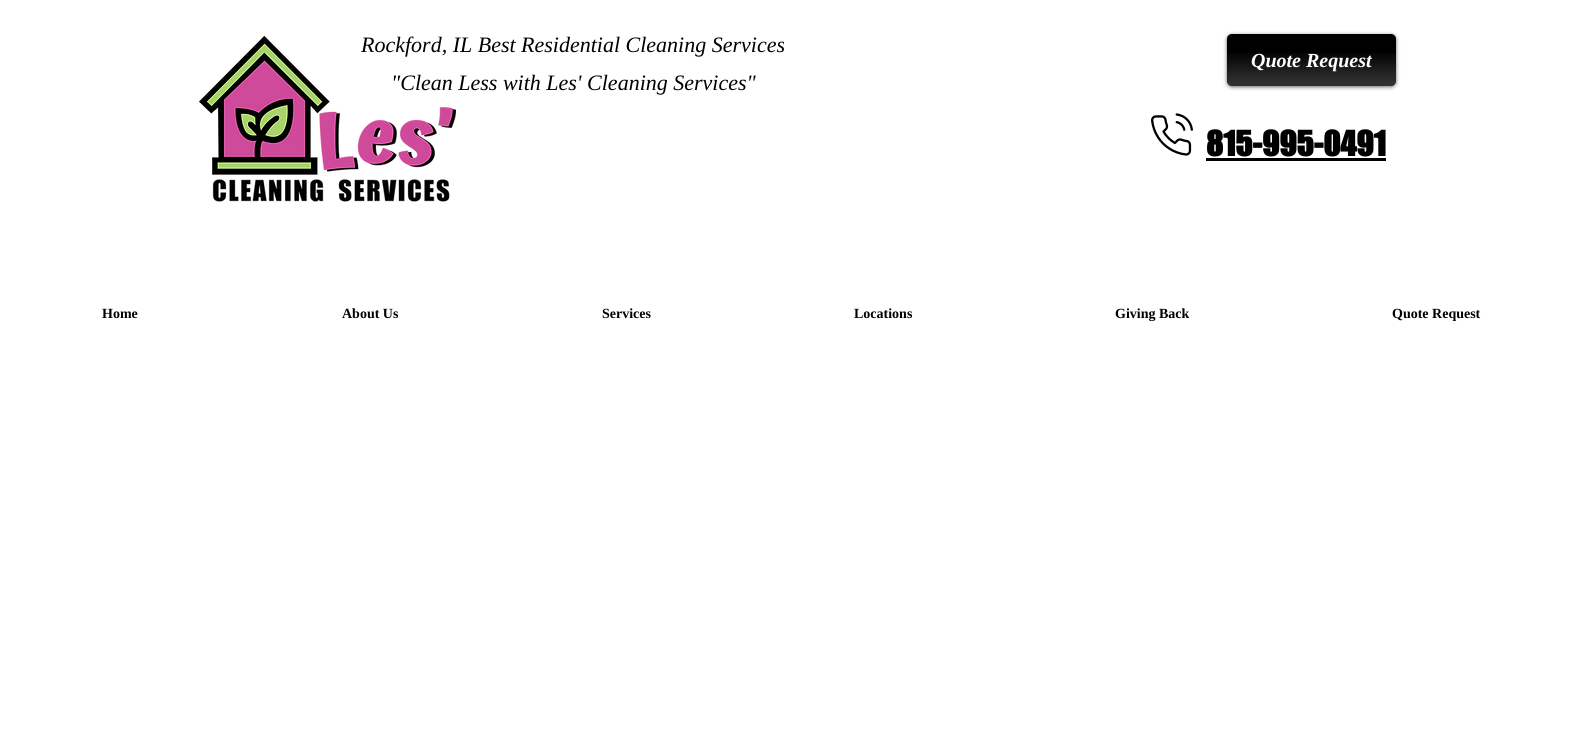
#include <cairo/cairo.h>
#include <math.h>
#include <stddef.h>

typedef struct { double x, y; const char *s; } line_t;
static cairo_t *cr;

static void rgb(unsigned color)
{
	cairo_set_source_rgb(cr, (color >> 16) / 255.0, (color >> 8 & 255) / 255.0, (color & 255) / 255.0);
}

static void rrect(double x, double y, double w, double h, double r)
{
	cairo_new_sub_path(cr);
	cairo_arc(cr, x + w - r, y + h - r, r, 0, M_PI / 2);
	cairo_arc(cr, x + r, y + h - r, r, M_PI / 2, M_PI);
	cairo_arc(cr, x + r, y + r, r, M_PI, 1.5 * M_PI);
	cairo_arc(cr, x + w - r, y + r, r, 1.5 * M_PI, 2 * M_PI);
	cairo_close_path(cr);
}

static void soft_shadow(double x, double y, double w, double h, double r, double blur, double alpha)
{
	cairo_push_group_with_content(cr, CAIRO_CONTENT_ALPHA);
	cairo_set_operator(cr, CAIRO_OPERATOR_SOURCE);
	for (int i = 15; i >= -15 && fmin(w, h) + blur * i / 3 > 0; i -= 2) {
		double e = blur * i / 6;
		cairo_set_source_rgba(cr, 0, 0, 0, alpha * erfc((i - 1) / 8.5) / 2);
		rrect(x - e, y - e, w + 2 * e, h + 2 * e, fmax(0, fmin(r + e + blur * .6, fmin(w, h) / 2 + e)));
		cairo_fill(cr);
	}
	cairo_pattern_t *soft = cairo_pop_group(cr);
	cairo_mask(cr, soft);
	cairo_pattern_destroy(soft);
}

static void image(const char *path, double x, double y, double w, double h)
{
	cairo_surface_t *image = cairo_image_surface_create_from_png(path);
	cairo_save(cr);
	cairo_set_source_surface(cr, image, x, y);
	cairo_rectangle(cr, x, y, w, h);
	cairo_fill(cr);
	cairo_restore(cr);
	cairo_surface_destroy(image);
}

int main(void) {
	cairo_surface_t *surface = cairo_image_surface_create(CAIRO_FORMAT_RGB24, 1582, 741);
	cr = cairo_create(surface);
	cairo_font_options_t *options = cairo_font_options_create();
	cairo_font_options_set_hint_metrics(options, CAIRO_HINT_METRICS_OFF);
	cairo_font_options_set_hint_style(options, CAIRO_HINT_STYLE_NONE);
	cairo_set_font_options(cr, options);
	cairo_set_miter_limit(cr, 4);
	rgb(0xffffff);
	cairo_paint(cr);
	image("img/1.png", 199, 35, 257, 167);
	rgb(0x000000);
	soft_shadow(1227, 35, 169, 52, 5, 2, 0.6);
	rgb(0x000000);
	rrect(1227, 34, 169, 52, 5);
	cairo_fill(cr);
	image("img/2.png", 1227, 34, 169, 4);
	image("img/3.png", 1227, 53, 169, 33);
	image("img/4.png", 1151, 113, 42, 43);
	cairo_rectangle(cr, 1206, 158, 180, 3);
	cairo_fill(cr);
	cairo_select_font_face(cr, "Liberation Serif", CAIRO_FONT_SLANT_ITALIC, CAIRO_FONT_WEIGHT_NORMAL);
	cairo_set_font_size(cr, 22);
	cairo_move_to(cr, 361, 52);
	cairo_show_text(cr, "Rockford, IL Best Residential Cleaning Services");
	cairo_move_to(cr, 391, 90);
	cairo_show_text(cr, "\"Clean Less with Les' Cleaning Services\"");
	cairo_select_font_face(cr, "Liberation Serif", CAIRO_FONT_SLANT_ITALIC, CAIRO_FONT_WEIGHT_BOLD);
	cairo_set_font_size(cr, 20);
	rgb(0xffffff);
	cairo_move_to(cr, 1251, 67);
	cairo_show_text(cr, "Quote Request");
	cairo_select_font_face(cr, "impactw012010", CAIRO_FONT_SLANT_NORMAL, CAIRO_FONT_WEIGHT_BOLD);
	cairo_set_font_size(cr, 32);
	rgb(0x000000);
	cairo_move_to(cr, 1206, 156);
	cairo_show_text(cr, "815-995-0491");
	cairo_select_font_face(cr, "Liberation Serif", CAIRO_FONT_SLANT_NORMAL, CAIRO_FONT_WEIGHT_BOLD);
	cairo_set_font_size(cr, 14);
	{
		static const line_t items[] = {
			{102, 318, "Home"},
			{342, 318, "About Us"},
			{602, 318, "Services"},
			{854, 318, "Locations"},
			{1115, 318, "Giving Back"},
			{1392, 318, "Quote Request"},
		};
		for (size_t i = 0; i < sizeof items / sizeof *items; i++) {
			cairo_move_to(cr, items[i].x, items[i].y);
			cairo_show_text(cr, items[i].s);
		}
	}
	cairo_surface_write_to_png(surface, "page.png");
	cairo_font_options_destroy(options);
	cairo_destroy(cr);
	cairo_surface_destroy(surface);
	return 0;
}
